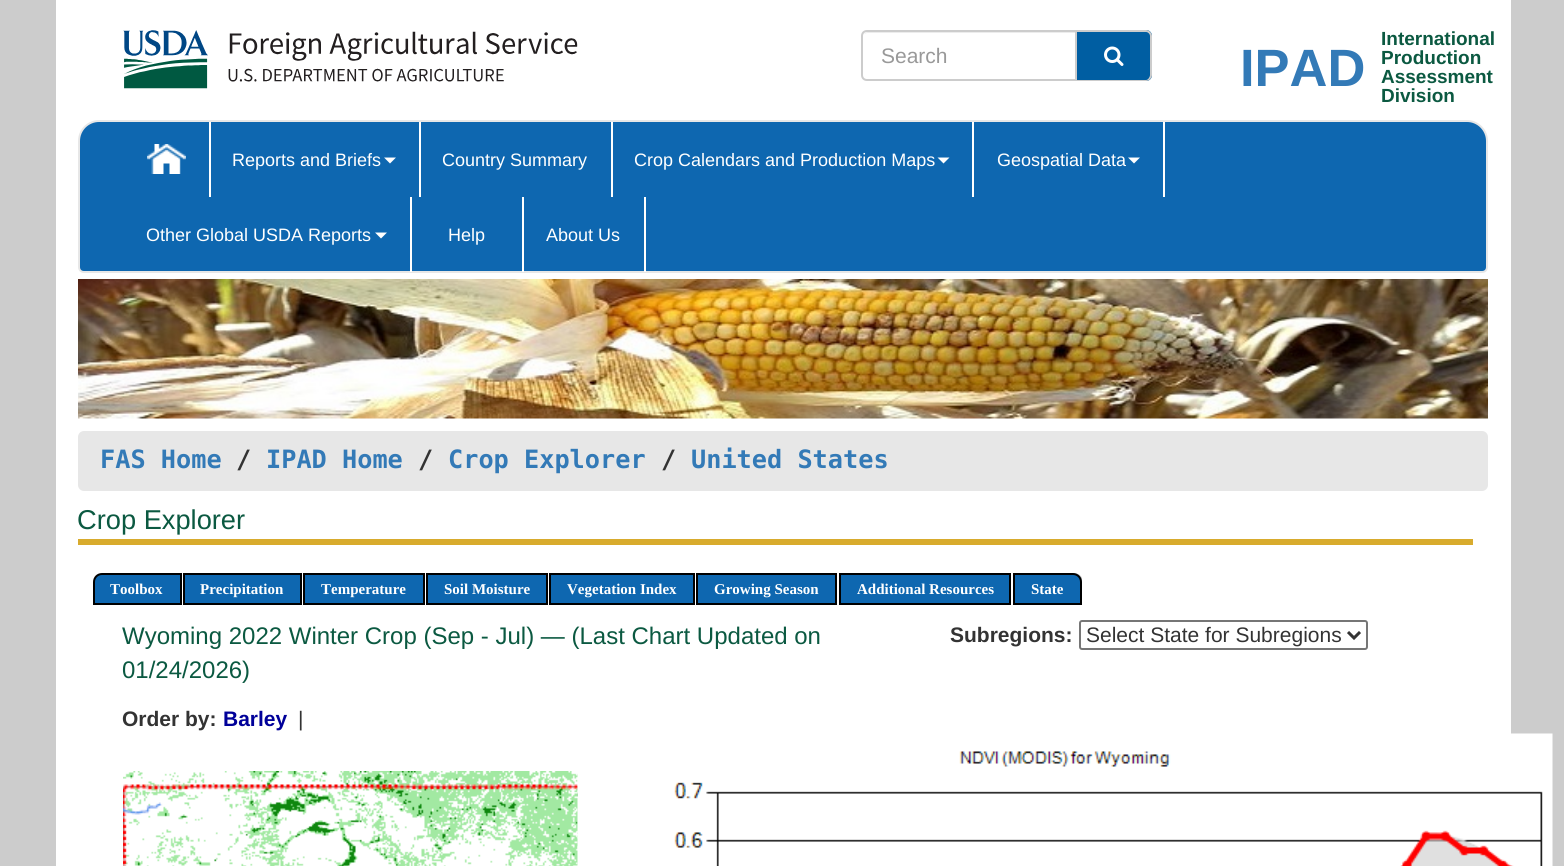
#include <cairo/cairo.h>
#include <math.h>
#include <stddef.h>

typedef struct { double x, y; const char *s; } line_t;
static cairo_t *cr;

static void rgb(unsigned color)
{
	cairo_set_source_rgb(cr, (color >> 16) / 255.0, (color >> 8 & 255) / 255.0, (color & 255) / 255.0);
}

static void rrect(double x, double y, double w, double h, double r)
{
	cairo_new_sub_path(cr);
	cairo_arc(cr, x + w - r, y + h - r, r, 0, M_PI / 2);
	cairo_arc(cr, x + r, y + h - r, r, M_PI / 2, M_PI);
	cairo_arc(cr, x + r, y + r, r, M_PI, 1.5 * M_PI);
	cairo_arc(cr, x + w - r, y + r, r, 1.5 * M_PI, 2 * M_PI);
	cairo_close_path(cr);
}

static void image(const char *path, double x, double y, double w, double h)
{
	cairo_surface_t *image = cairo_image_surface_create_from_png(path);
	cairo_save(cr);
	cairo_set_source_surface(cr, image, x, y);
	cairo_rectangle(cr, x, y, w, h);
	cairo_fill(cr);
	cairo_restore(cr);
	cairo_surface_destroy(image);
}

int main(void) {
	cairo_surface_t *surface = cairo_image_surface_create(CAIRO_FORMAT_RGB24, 1564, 866);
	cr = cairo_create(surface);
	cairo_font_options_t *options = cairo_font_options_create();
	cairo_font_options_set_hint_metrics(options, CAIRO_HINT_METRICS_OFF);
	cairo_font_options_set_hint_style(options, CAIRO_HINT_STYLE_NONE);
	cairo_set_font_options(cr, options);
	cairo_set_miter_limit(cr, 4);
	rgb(0xcccccc);
	cairo_paint(cr);
	rgb(0xffffff);
	cairo_rectangle(cr, 56, 0, 1455, 866);
	cairo_fill(cr);
	image("img/1.png", 123, 30, 455, 59);
	rgb(0xececec);
	cairo_new_path(cr);
	cairo_move_to(cr, 867, 33);
	cairo_line_to(cr, 1076, 33);
	cairo_line_to(cr, 1076, 32);
	cairo_line_to(cr, 868, 32);
	cairo_curve_to(cr, 866, 32, 865, 33, 864, 34);
	cairo_close_path(cr);
	cairo_fill(cr);
	cairo_new_path(cr);
	cairo_move_to(cr, 867, 31);
	cairo_line_to(cr, 1076, 31);
	cairo_line_to(cr, 1076, 80);
	cairo_line_to(cr, 867, 80);
	cairo_curve_to(cr, 864, 80, 862, 78, 862, 75);
	cairo_line_to(cr, 862, 36);
	cairo_curve_to(cr, 862, 33, 864, 31, 867, 31);
	cairo_close_path(cr);
	rgb(0xcccccc);
	cairo_stroke(cr);
	rgb(0x005ea2);
	cairo_new_path(cr);
	cairo_move_to(cr, 1077, 30);
	cairo_line_to(cr, 1146, 30);
	cairo_curve_to(cr, 1149.5, 30, 1152, 32.5, 1152, 36);
	cairo_line_to(cr, 1152, 75);
	cairo_curve_to(cr, 1152, 78.5, 1149.5, 81, 1146, 81);
	cairo_line_to(cr, 1077, 81);
	cairo_close_path(cr);
	cairo_fill(cr);
	rgb(0xcccccc);
	cairo_set_fill_rule(cr, CAIRO_FILL_RULE_EVEN_ODD);
	cairo_new_path(cr);
	cairo_move_to(cr, 1077, 30);
	cairo_line_to(cr, 1146, 30);
	cairo_curve_to(cr, 1149, 30, 1152, 33, 1152, 36);
	cairo_line_to(cr, 1152, 75);
	cairo_curve_to(cr, 1152, 78, 1149, 81, 1146, 81);
	cairo_line_to(cr, 1077, 81);
	cairo_close_path(cr);
	cairo_move_to(cr, 1077, 32);
	cairo_line_to(cr, 1146, 32);
	cairo_curve_to(cr, 1148, 32, 1150, 34, 1150, 36);
	cairo_line_to(cr, 1150, 75);
	cairo_curve_to(cr, 1150, 77, 1148, 80, 1146, 80);
	cairo_line_to(cr, 1077, 80);
	cairo_close_path(cr);
	cairo_fill(cr);
	image("img/2.png", 1104, 46, 20, 20);
	rgb(0x0e67b0);
	cairo_new_path(cr);
	cairo_move_to(cr, 99, 121);
	cairo_line_to(cr, 1467, 121);
	cairo_curve_to(cr, 1478, 121, 1487, 130, 1487, 141);
	cairo_line_to(cr, 1487, 267);
	cairo_curve_to(cr, 1487, 270, 1485, 272, 1482, 272);
	cairo_line_to(cr, 84, 272);
	cairo_curve_to(cr, 81, 272, 79, 270, 79, 267);
	cairo_line_to(cr, 79, 141);
	cairo_curve_to(cr, 79, 130, 88, 121, 99, 121);
	cairo_close_path(cr);
	cairo_fill_preserve(cr);
	rgb(0xe7e7e7);
	cairo_stroke(cr);
	rgb(0xffffff);
	cairo_rectangle(cr, 209, 122, 2, 75);
	cairo_fill(cr);
	image("img/3.png", 147, 144, 39, 30);
	cairo_rectangle(cr, 419, 122, 2, 75);
	cairo_fill(cr);
	cairo_set_fill_rule(cr, CAIRO_FILL_RULE_WINDING);
	cairo_new_path(cr);
	cairo_move_to(cr, 384, 157.5);
	cairo_line_to(cr, 396, 157.5);
	cairo_line_to(cr, 390, 163.5);
	cairo_close_path(cr);
	cairo_fill(cr);
	cairo_rectangle(cr, 611, 122, 2, 75);
	cairo_fill(cr);
	cairo_rectangle(cr, 972, 122, 2, 75);
	cairo_fill(cr);
	cairo_new_path(cr);
	cairo_move_to(cr, 937.5, 157.5);
	cairo_line_to(cr, 949.5, 157.5);
	cairo_line_to(cr, 943.5, 163.5);
	cairo_close_path(cr);
	cairo_fill(cr);
	cairo_rectangle(cr, 1163, 122, 2, 75);
	cairo_fill(cr);
	cairo_new_path(cr);
	cairo_move_to(cr, 1128, 157.5);
	cairo_line_to(cr, 1140, 157.5);
	cairo_line_to(cr, 1134, 163.5);
	cairo_close_path(cr);
	cairo_fill(cr);
	cairo_rectangle(cr, 410, 197, 2, 75);
	cairo_fill(cr);
	cairo_new_path(cr);
	cairo_move_to(cr, 375, 232.5);
	cairo_line_to(cr, 387, 232.5);
	cairo_line_to(cr, 381, 238.5);
	cairo_close_path(cr);
	cairo_fill(cr);
	cairo_rectangle(cr, 522, 197, 2, 75);
	cairo_fill(cr);
	cairo_rectangle(cr, 644, 197, 2, 75);
	cairo_fill(cr);
	image("img/4.png", 78, 279, 1410, 140);
	rgb(0xe7e7e7);
	rrect(78, 431, 1410, 60, 6);
	cairo_fill(cr);
	rgb(0xd8ab2d);
	cairo_rectangle(cr, 78, 539, 1395, 6);
	cairo_fill(cr);
	rgb(0x0e67b0);
	cairo_new_path(cr);
	cairo_move_to(cr, 102, 574);
	cairo_line_to(cr, 181, 574);
	cairo_line_to(cr, 181, 604);
	cairo_line_to(cr, 94, 604);
	cairo_line_to(cr, 94, 582);
	cairo_curve_to(cr, 94, 577.5, 97.5, 574, 102, 574);
	cairo_close_path(cr);
	cairo_fill_preserve(cr);
	rgb(0x000000);
	cairo_stroke(cr);
	rgb(0x0e67b0);
	cairo_rectangle(cr, 184, 574, 117, 30);
	cairo_fill_preserve(cr);
	rgb(0x000000);
	cairo_stroke(cr);
	rgb(0x0e67b0);
	cairo_rectangle(cr, 304, 574, 120, 30);
	cairo_fill_preserve(cr);
	rgb(0x000000);
	cairo_stroke(cr);
	rgb(0x0e67b0);
	cairo_rectangle(cr, 427, 574, 120, 30);
	cairo_fill_preserve(cr);
	rgb(0x000000);
	cairo_stroke(cr);
	rgb(0x0e67b0);
	cairo_rectangle(cr, 550, 574, 144, 30);
	cairo_fill_preserve(cr);
	rgb(0x000000);
	cairo_stroke(cr);
	rgb(0x0e67b0);
	cairo_rectangle(cr, 697, 574, 139, 30);
	cairo_fill_preserve(cr);
	rgb(0x000000);
	cairo_stroke(cr);
	rgb(0x0e67b0);
	cairo_rectangle(cr, 840, 574, 170, 30);
	cairo_fill_preserve(cr);
	rgb(0x000000);
	cairo_stroke(cr);
	rgb(0xc8c8c8);
	cairo_new_path(cr);
	cairo_move_to(cr, 1013, 573);
	cairo_line_to(cr, 1074, 573);
	cairo_curve_to(cr, 1079, 573, 1083, 577, 1083, 582);
	cairo_line_to(cr, 1083, 605);
	cairo_line_to(cr, 1013, 605);
	cairo_close_path(cr);
	cairo_fill(cr);
	rgb(0xffffff);
	cairo_rectangle(cr, 1082, 578, 1, 27);
	cairo_fill(cr);
	rgb(0x0e67b0);
	cairo_new_path(cr);
	cairo_move_to(cr, 1014, 574);
	cairo_line_to(cr, 1073, 574);
	cairo_curve_to(cr, 1077.5, 574, 1081, 577.5, 1081, 582);
	cairo_line_to(cr, 1081, 604);
	cairo_line_to(cr, 1014, 604);
	cairo_close_path(cr);
	cairo_fill_preserve(cr);
	rgb(0x000000);
	cairo_stroke(cr);
	rrect(1080, 621, 287, 28, 2);
	rgb(0x767676);
	cairo_stroke(cr);
	cairo_new_path(cr);
	cairo_move_to(cr, 1348, 632);
	cairo_line_to(cr, 1354, 638);
	cairo_line_to(cr, 1360, 632);
	rgb(0x333333);
	cairo_set_line_width(cr, 3);
	cairo_stroke(cr);
	image("img/5.png", 123, 771, 455, 95);
	image("img/6.png", 577, 733, 976, 133);
	cairo_select_font_face(cr, "Liberation Sans", CAIRO_FONT_SLANT_NORMAL, CAIRO_FONT_WEIGHT_NORMAL);
	cairo_set_font_size(cr, 21);
	rgb(0x999999);
	cairo_move_to(cr, 881, 63);
	cairo_show_text(cr, "Search");
	cairo_select_font_face(cr, "Liberation Sans", CAIRO_FONT_SLANT_NORMAL, CAIRO_FONT_WEIGHT_BOLD);
	cairo_set_font_size(cr, 52.5);
	rgb(0x337ab7);
	cairo_move_to(cr, 1240, 86);
	cairo_show_text(cr, "IPAD");
	cairo_set_font_size(cr, 19);
	rgb(0x0b5941);
	{
		static const line_t items[] = {
			{1381, 45, "International"},
			{1381, 64, "Production"},
			{1381, 83, "Assessment"},
			{1381, 102, "Division"},
		};
		for (size_t i = 0; i < sizeof items / sizeof *items; i++) {
			cairo_move_to(cr, items[i].x, items[i].y);
			cairo_show_text(cr, items[i].s);
		}
	}
	cairo_select_font_face(cr, "Liberation Sans", CAIRO_FONT_SLANT_NORMAL, CAIRO_FONT_WEIGHT_NORMAL);
	cairo_set_font_size(cr, 18);
	rgb(0xffffff);
	{
		static const line_t items[] = {
			{232, 166, "Reports and Briefs"},
			{442, 166, "Country Summary"},
			{634, 166, "Crop Calendars and Production Maps"},
			{997, 166, "Geospatial Data"},
			{146, 241, "Other Global USDA Reports"},
			{448, 241, "Help"},
			{546, 241, "About Us"},
		};
		for (size_t i = 0; i < sizeof items / sizeof *items; i++) {
			cairo_move_to(cr, items[i].x, items[i].y);
			cairo_show_text(cr, items[i].s);
		}
	}
	cairo_select_font_face(cr, "DejaVu Sans Mono", CAIRO_FONT_SLANT_NORMAL, CAIRO_FONT_WEIGHT_BOLD);
	cairo_set_font_size(cr, 25.25);
	rgb(0x337ab7);
	cairo_move_to(cr, 100, 468);
	cairo_show_text(cr, "FAS Home");
	rgb(0x333333);
	cairo_move_to(cr, 236, 468);
	cairo_show_text(cr, "/");
	rgb(0x337ab7);
	cairo_move_to(cr, 266, 468);
	cairo_show_text(cr, "IPAD Home");
	rgb(0x333333);
	cairo_move_to(cr, 418, 468);
	cairo_show_text(cr, "/");
	rgb(0x337ab7);
	cairo_move_to(cr, 448, 468);
	cairo_show_text(cr, "Crop Explorer");
	rgb(0x333333);
	cairo_move_to(cr, 661, 468);
	cairo_show_text(cr, "/");
	rgb(0x337ab7);
	cairo_move_to(cr, 691, 468);
	cairo_show_text(cr, "United States");
	cairo_select_font_face(cr, "Liberation Sans", CAIRO_FONT_SLANT_NORMAL, CAIRO_FONT_WEIGHT_NORMAL);
	cairo_set_font_size(cr, 27.25);
	rgb(0x0b5941);
	cairo_move_to(cr, 77, 529);
	cairo_show_text(cr, "Crop Explorer");
	cairo_select_font_face(cr, "Liberation Serif", CAIRO_FONT_SLANT_NORMAL, CAIRO_FONT_WEIGHT_BOLD);
	cairo_set_font_size(cr, 15);
	rgb(0xffffff);
	{
		static const line_t items[] = {
			{110, 594, "Toolbox"},
			{200, 594, "Precipitation"},
			{321, 594, "Temperature"},
			{444, 594, "Soil Moisture"},
			{567, 594, "Vegetation Index"},
			{714, 594, "Growing Season"},
			{857, 594, "Additional Resources"},
			{1031, 594, "State"},
		};
		for (size_t i = 0; i < sizeof items / sizeof *items; i++) {
			cairo_move_to(cr, items[i].x, items[i].y);
			cairo_show_text(cr, items[i].s);
		}
	}
	cairo_select_font_face(cr, "Liberation Sans", CAIRO_FONT_SLANT_NORMAL, CAIRO_FONT_WEIGHT_NORMAL);
	cairo_set_font_size(cr, 24);
	rgb(0x0b5941);
	cairo_move_to(cr, 122, 644);
	cairo_show_text(cr, "Wyoming 2022 Winter Crop (Sep - Jul) — (Last Chart Updated on");
	cairo_move_to(cr, 122, 678);
	cairo_show_text(cr, "01/24/2026)");
	cairo_select_font_face(cr, "Liberation Sans", CAIRO_FONT_SLANT_NORMAL, CAIRO_FONT_WEIGHT_BOLD);
	cairo_set_font_size(cr, 21);
	rgb(0x333333);
	cairo_move_to(cr, 950, 642);
	cairo_show_text(cr, "Subregions:");
	cairo_select_font_face(cr, "Liberation Sans", CAIRO_FONT_SLANT_NORMAL, CAIRO_FONT_WEIGHT_NORMAL);
	cairo_move_to(cr, 1086, 642);
	cairo_show_text(cr, "Select State for Subregions");
	cairo_select_font_face(cr, "Liberation Sans", CAIRO_FONT_SLANT_NORMAL, CAIRO_FONT_WEIGHT_BOLD);
	cairo_move_to(cr, 122, 726);
	cairo_show_text(cr, "Order by:");
	rgb(0x000099);
	cairo_move_to(cr, 223, 726);
	cairo_show_text(cr, "Barley");
	cairo_select_font_face(cr, "Liberation Sans", CAIRO_FONT_SLANT_NORMAL, CAIRO_FONT_WEIGHT_NORMAL);
	rgb(0x333333);
	cairo_move_to(cr, 298, 726);
	cairo_show_text(cr, "|");
	cairo_surface_write_to_png(surface, "page.png");
	cairo_font_options_destroy(options);
	cairo_destroy(cr);
	cairo_surface_destroy(surface);
	return 0;
}
